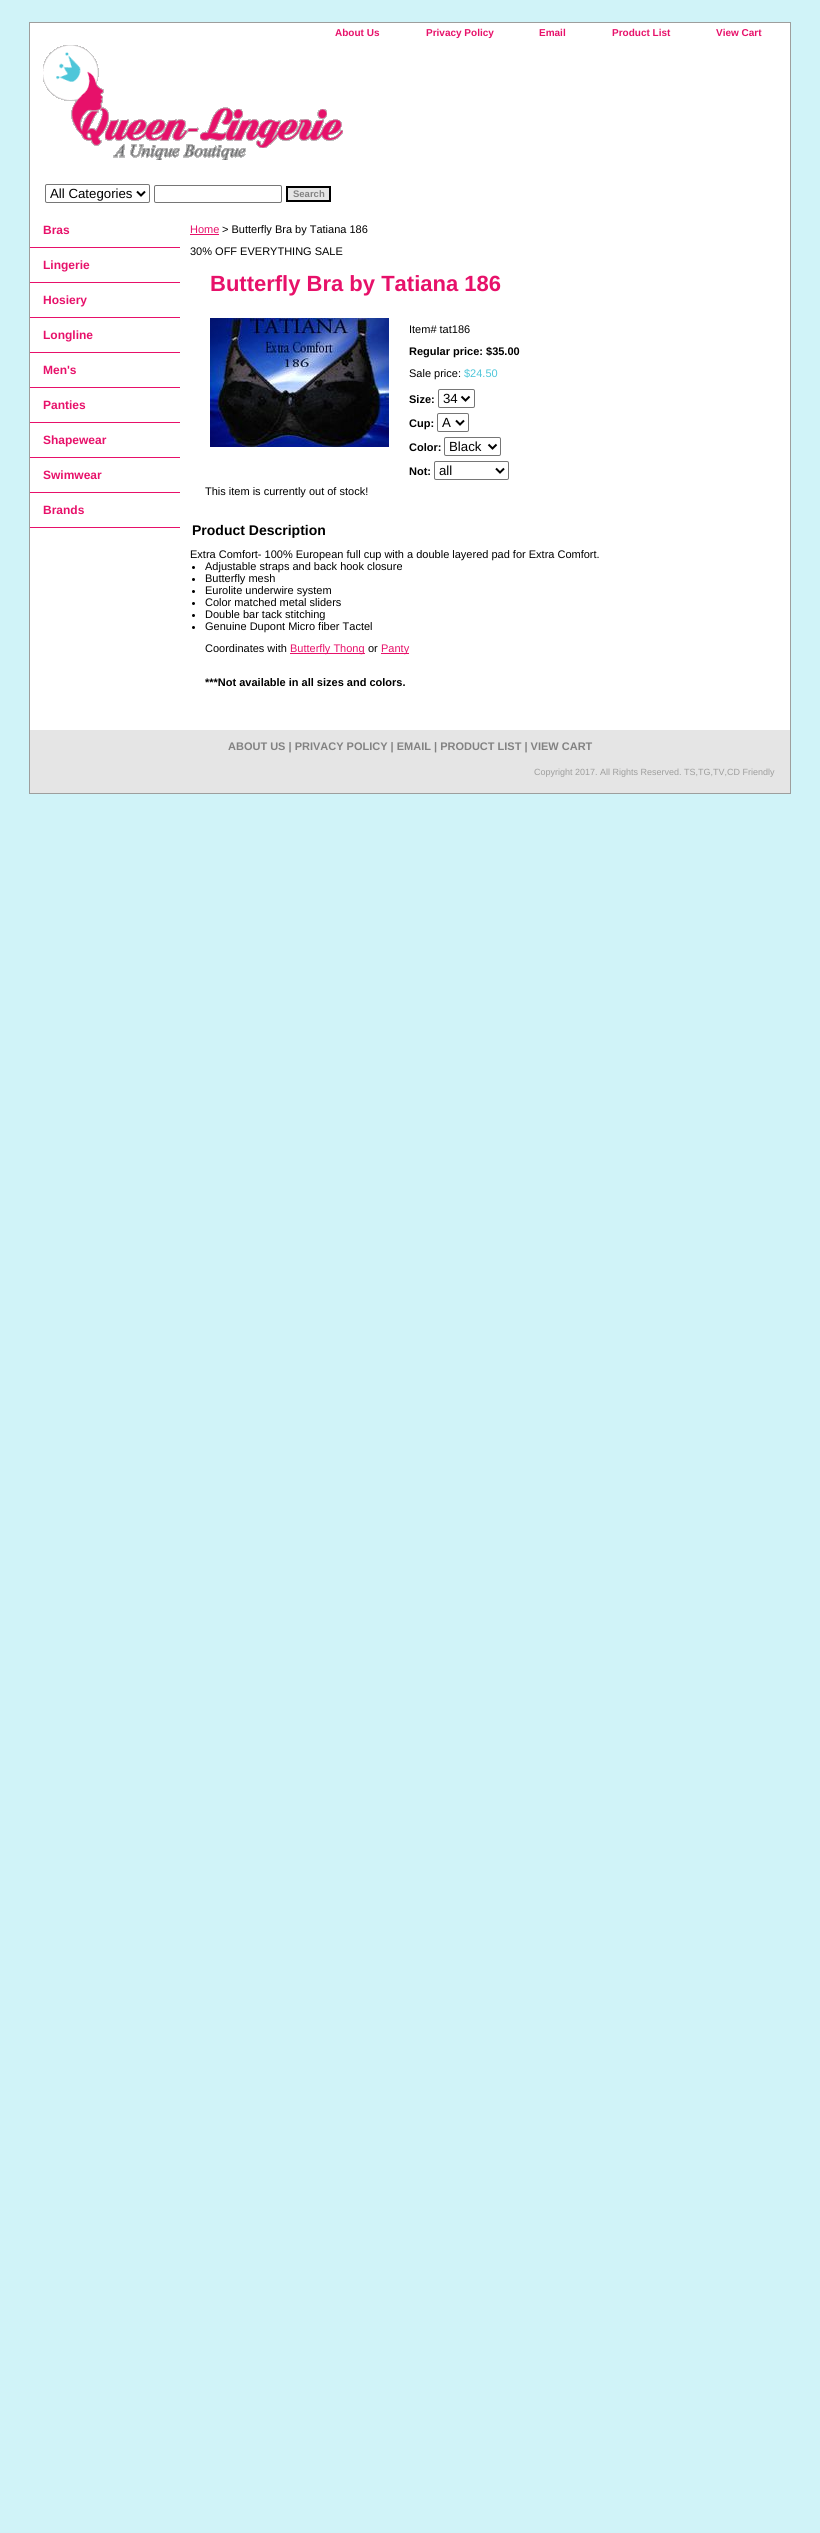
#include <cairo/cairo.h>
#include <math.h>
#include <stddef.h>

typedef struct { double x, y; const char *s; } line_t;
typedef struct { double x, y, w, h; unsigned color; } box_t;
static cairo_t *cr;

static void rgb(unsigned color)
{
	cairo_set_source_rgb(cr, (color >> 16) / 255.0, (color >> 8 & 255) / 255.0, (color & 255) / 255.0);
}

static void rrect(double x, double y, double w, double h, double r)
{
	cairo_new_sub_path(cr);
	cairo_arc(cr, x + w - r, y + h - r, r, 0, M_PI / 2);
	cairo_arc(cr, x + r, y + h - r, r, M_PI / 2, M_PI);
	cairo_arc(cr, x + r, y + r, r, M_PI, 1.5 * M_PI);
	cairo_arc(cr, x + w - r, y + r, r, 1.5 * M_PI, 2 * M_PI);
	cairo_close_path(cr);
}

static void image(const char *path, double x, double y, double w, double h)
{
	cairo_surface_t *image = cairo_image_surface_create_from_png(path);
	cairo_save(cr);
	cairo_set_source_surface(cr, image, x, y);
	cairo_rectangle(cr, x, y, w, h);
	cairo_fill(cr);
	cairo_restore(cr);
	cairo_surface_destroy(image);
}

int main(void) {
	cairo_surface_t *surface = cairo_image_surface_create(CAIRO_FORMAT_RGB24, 820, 2533);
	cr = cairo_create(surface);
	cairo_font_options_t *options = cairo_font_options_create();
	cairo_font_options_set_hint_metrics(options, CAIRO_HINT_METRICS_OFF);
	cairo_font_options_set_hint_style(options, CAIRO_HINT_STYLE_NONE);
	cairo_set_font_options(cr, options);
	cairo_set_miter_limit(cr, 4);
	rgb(0xd0f3f8);
	cairo_paint(cr);
	rgb(0xffffff);
	cairo_rectangle(cr, 30, 23, 760, 707);
	cairo_fill(cr);
	cairo_rectangle(cr, 29.5, 22.5, 761, 771);
	rgb(0x9e9e9d);
	cairo_set_line_width(cr, 1);
	cairo_stroke(cr);
	image("img/1.png", 43, 45, 300, 115);
	rrect(45.5, 184.5, 104, 18, 1.5);
	rgb(0x767676);
	cairo_stroke(cr);
	cairo_new_path(cr);
	cairo_move_to(cr, 137, 191.5);
	cairo_line_to(cr, 141, 195.5);
	cairo_line_to(cr, 145, 191.5);
	rgb(0x000000);
	cairo_set_line_width(cr, 2);
	cairo_stroke(cr);
	rrect(154.5, 185.5, 127, 17, 1.5);
	rgb(0x767676);
	cairo_set_line_width(cr, 1);
	cairo_stroke(cr);
	rgb(0xe5e5e5);
	cairo_rectangle(cr, 287, 187, 43, 14);
	cairo_fill_preserve(cr);
	rgb(0x000000);
	cairo_set_line_width(cr, 2);
	cairo_stroke(cr);
	{
		static const box_t items[] = {
			{30, 247, 150, 1, 0xe7116a},
			{30, 282, 150, 1, 0xe7116a},
			{30, 317, 150, 1, 0xe7116a},
			{30, 352, 150, 1, 0xe7116a},
			{30, 387, 150, 1, 0xe7116a},
			{30, 422, 150, 1, 0xe7116a},
			{30, 457, 150, 1, 0xe7116a},
			{30, 492, 150, 1, 0xe7116a},
			{30, 527, 150, 1, 0xe7116a},
			{190, 234, 29, 1, 0xe7116a},
		};
		for (size_t i = 0; i < sizeof items / sizeof *items; i++) {
			rgb(items[i].color);
			cairo_rectangle(cr, items[i].x, items[i].y, items[i].w, items[i].h);
			cairo_fill(cr);
		}
	}
	image("img/2.png", 210, 318, 179, 129);
	rrect(438.5, 389.5, 36, 18, 1.5);
	rgb(0x767676);
	cairo_set_line_width(cr, 1);
	cairo_stroke(cr);
	cairo_new_path(cr);
	cairo_move_to(cr, 461.5, 396.5);
	cairo_line_to(cr, 465.5, 400.5);
	cairo_line_to(cr, 469.5, 396.5);
	rgb(0x000000);
	cairo_set_line_width(cr, 2);
	cairo_stroke(cr);
	rrect(437.5, 413.5, 31, 18, 1.5);
	rgb(0x767676);
	cairo_set_line_width(cr, 1);
	cairo_stroke(cr);
	cairo_new_path(cr);
	cairo_move_to(cr, 456, 420.5);
	cairo_line_to(cr, 460, 424.5);
	cairo_line_to(cr, 464, 420.5);
	rgb(0x000000);
	cairo_set_line_width(cr, 2);
	cairo_stroke(cr);
	rrect(444.5, 437.5, 56, 18, 1.5);
	rgb(0x767676);
	cairo_set_line_width(cr, 1);
	cairo_stroke(cr);
	cairo_new_path(cr);
	cairo_move_to(cr, 488.5, 444.5);
	cairo_line_to(cr, 492.5, 448.5);
	cairo_line_to(cr, 496.5, 444.5);
	rgb(0x000000);
	cairo_set_line_width(cr, 2);
	cairo_stroke(cr);
	rrect(434.5, 461.5, 74, 18, 1.5);
	rgb(0x767676);
	cairo_set_line_width(cr, 1);
	cairo_stroke(cr);
	cairo_new_path(cr);
	cairo_move_to(cr, 496, 468.5);
	cairo_line_to(cr, 500, 472.5);
	cairo_line_to(cr, 504, 468.5);
	rgb(0x000000);
	cairo_set_line_width(cr, 2);
	cairo_stroke(cr);
	cairo_arc(cr, 193.5, 567.5, 1.5, 0, 2 * M_PI);
	cairo_fill(cr);
	cairo_arc(cr, 193.5, 579.5, 1.5, 0, 2 * M_PI);
	cairo_fill(cr);
	cairo_arc(cr, 193.5, 591.5, 1.5, 0, 2 * M_PI);
	cairo_fill(cr);
	cairo_arc(cr, 193.5, 603.5, 1.5, 0, 2 * M_PI);
	cairo_fill(cr);
	cairo_arc(cr, 193.5, 615.5, 1.5, 0, 2 * M_PI);
	cairo_fill(cr);
	cairo_arc(cr, 193.5, 627.5, 1.5, 0, 2 * M_PI);
	cairo_fill(cr);
	{
		static const box_t items[] = {
			{290, 653, 75, 1, 0xe7116a},
			{381, 653, 28, 1, 0xe7116a},
			{30, 730, 760, 63, 0xe5e5e5},
		};
		for (size_t i = 0; i < sizeof items / sizeof *items; i++) {
			rgb(items[i].color);
			cairo_rectangle(cr, items[i].x, items[i].y, items[i].w, items[i].h);
			cairo_fill(cr);
		}
	}
	cairo_select_font_face(cr, "Liberation Sans", CAIRO_FONT_SLANT_NORMAL, CAIRO_FONT_WEIGHT_BOLD);
	cairo_set_font_size(cr, 10);
	rgb(0xe7116a);
	{
		static const line_t items[] = {
			{335, 36, "About Us"},
			{426, 36, "Privacy Policy"},
			{539, 36, "Email"},
			{612, 36, "Product List"},
			{716, 36, "View Cart"},
		};
		for (size_t i = 0; i < sizeof items / sizeof *items; i++) {
			cairo_move_to(cr, items[i].x, items[i].y);
			cairo_show_text(cr, items[i].s);
		}
	}
	cairo_select_font_face(cr, "Liberation Sans", CAIRO_FONT_SLANT_NORMAL, CAIRO_FONT_WEIGHT_NORMAL);
	cairo_set_font_size(cr, 13.25);
	rgb(0x000000);
	cairo_move_to(cr, 50, 198);
	cairo_show_text(cr, "All Categories");
	cairo_select_font_face(cr, "Liberation Sans", CAIRO_FONT_SLANT_NORMAL, CAIRO_FONT_WEIGHT_BOLD);
	cairo_set_font_size(cr, 9.5);
	rgb(0x828282);
	cairo_move_to(cr, 293, 197);
	cairo_show_text(cr, "Search");
	cairo_set_font_size(cr, 12);
	rgb(0xe7116a);
	{
		static const line_t items[] = {
			{43, 234, "Bras"},
			{43, 269, "Lingerie"},
			{43, 304, "Hosiery"},
			{43, 339, "Longline"},
			{43, 374, "Men's"},
			{43, 409, "Panties"},
			{43, 444, "Shapewear"},
			{43, 479, "Swimwear"},
			{43, 514, "Brands"},
		};
		for (size_t i = 0; i < sizeof items / sizeof *items; i++) {
			cairo_move_to(cr, items[i].x, items[i].y);
			cairo_show_text(cr, items[i].s);
		}
	}
	cairo_select_font_face(cr, "Liberation Sans", CAIRO_FONT_SLANT_NORMAL, CAIRO_FONT_WEIGHT_NORMAL);
	cairo_set_font_size(cr, 11);
	cairo_move_to(cr, 190, 233);
	cairo_show_text(cr, "Home");
	rgb(0x000000);
	cairo_move_to(cr, 222, 233);
	cairo_show_text(cr, "> Butterfly Bra by Tatiana 186");
	cairo_move_to(cr, 190, 255);
	cairo_show_text(cr, "30% OFF EVERYTHING SALE");
	cairo_select_font_face(cr, "Liberation Sans", CAIRO_FONT_SLANT_NORMAL, CAIRO_FONT_WEIGHT_BOLD);
	cairo_set_font_size(cr, 22);
	rgb(0xe7116a);
	cairo_move_to(cr, 210, 291);
	cairo_show_text(cr, "Butterfly Bra by Tatiana 186");
	cairo_select_font_face(cr, "Liberation Sans", CAIRO_FONT_SLANT_NORMAL, CAIRO_FONT_WEIGHT_NORMAL);
	cairo_set_font_size(cr, 11);
	rgb(0x000000);
	cairo_move_to(cr, 409, 333);
	cairo_show_text(cr, "Item# tat186");
	cairo_select_font_face(cr, "Liberation Sans", CAIRO_FONT_SLANT_NORMAL, CAIRO_FONT_WEIGHT_BOLD);
	cairo_move_to(cr, 409, 355);
	cairo_show_text(cr, "Regular price: $35.00");
	cairo_select_font_face(cr, "Liberation Sans", CAIRO_FONT_SLANT_NORMAL, CAIRO_FONT_WEIGHT_NORMAL);
	cairo_move_to(cr, 409, 377);
	cairo_show_text(cr, "Sale price:");
	rgb(0x4ec6d9);
	cairo_move_to(cr, 464, 377);
	cairo_show_text(cr, "$24.50");
	cairo_select_font_face(cr, "Liberation Sans", CAIRO_FONT_SLANT_NORMAL, CAIRO_FONT_WEIGHT_BOLD);
	rgb(0x000000);
	cairo_move_to(cr, 409, 403);
	cairo_show_text(cr, "Size:");
	cairo_select_font_face(cr, "Liberation Sans", CAIRO_FONT_SLANT_NORMAL, CAIRO_FONT_WEIGHT_NORMAL);
	cairo_set_font_size(cr, 13.25);
	cairo_move_to(cr, 443, 403);
	cairo_show_text(cr, "34");
	cairo_select_font_face(cr, "Liberation Sans", CAIRO_FONT_SLANT_NORMAL, CAIRO_FONT_WEIGHT_BOLD);
	cairo_set_font_size(cr, 11);
	cairo_move_to(cr, 409, 427);
	cairo_show_text(cr, "Cup:");
	cairo_select_font_face(cr, "Liberation Sans", CAIRO_FONT_SLANT_NORMAL, CAIRO_FONT_WEIGHT_NORMAL);
	cairo_set_font_size(cr, 13.25);
	cairo_move_to(cr, 442, 427);
	cairo_show_text(cr, "A");
	cairo_select_font_face(cr, "Liberation Sans", CAIRO_FONT_SLANT_NORMAL, CAIRO_FONT_WEIGHT_BOLD);
	cairo_set_font_size(cr, 11);
	cairo_move_to(cr, 409, 451);
	cairo_show_text(cr, "Color:");
	cairo_select_font_face(cr, "Liberation Sans", CAIRO_FONT_SLANT_NORMAL, CAIRO_FONT_WEIGHT_NORMAL);
	cairo_set_font_size(cr, 13.25);
	cairo_move_to(cr, 449, 451);
	cairo_show_text(cr, "Black");
	cairo_select_font_face(cr, "Liberation Sans", CAIRO_FONT_SLANT_NORMAL, CAIRO_FONT_WEIGHT_BOLD);
	cairo_set_font_size(cr, 11);
	cairo_move_to(cr, 409, 475);
	cairo_show_text(cr, "Not:");
	cairo_select_font_face(cr, "Liberation Sans", CAIRO_FONT_SLANT_NORMAL, CAIRO_FONT_WEIGHT_NORMAL);
	cairo_set_font_size(cr, 13.25);
	cairo_move_to(cr, 439, 475);
	cairo_show_text(cr, "all");
	cairo_set_font_size(cr, 11);
	cairo_move_to(cr, 205, 495);
	cairo_show_text(cr, "This item is currently out of stock!");
	cairo_select_font_face(cr, "Liberation Sans", CAIRO_FONT_SLANT_NORMAL, CAIRO_FONT_WEIGHT_BOLD);
	cairo_set_font_size(cr, 14);
	cairo_move_to(cr, 192, 535);
	cairo_show_text(cr, "Product Description");
	cairo_select_font_face(cr, "Liberation Sans", CAIRO_FONT_SLANT_NORMAL, CAIRO_FONT_WEIGHT_NORMAL);
	cairo_set_font_size(cr, 11);
	{
		static const line_t items[] = {
			{190, 558, "Extra Comfort- 100% European full cup with a double layered pad for Extra Comfort."},
			{205, 570, "Adjustable straps and back hook closure"},
			{205, 582, "Butterfly mesh"},
			{205, 594, "Eurolite underwire system"},
			{205, 606, "Color matched metal sliders"},
			{205, 618, "Double bar tack stitching"},
			{205, 630, "Genuine Dupont Micro fiber Tactel"},
			{205, 652, "Coordinates with"},
		};
		for (size_t i = 0; i < sizeof items / sizeof *items; i++) {
			cairo_move_to(cr, items[i].x, items[i].y);
			cairo_show_text(cr, items[i].s);
		}
	}
	rgb(0xe7116a);
	cairo_move_to(cr, 290, 652);
	cairo_show_text(cr, "Butterfly Thong");
	rgb(0x000000);
	cairo_move_to(cr, 368, 652);
	cairo_show_text(cr, "or");
	rgb(0xe7116a);
	cairo_move_to(cr, 381, 652);
	cairo_show_text(cr, "Panty");
	cairo_select_font_face(cr, "Liberation Sans", CAIRO_FONT_SLANT_NORMAL, CAIRO_FONT_WEIGHT_BOLD);
	rgb(0x000000);
	cairo_move_to(cr, 205, 686);
	cairo_show_text(cr, "***Not available in all sizes and colors.");
	rgb(0x828282);
	cairo_move_to(cr, 228, 750);
	cairo_show_text(cr, "ABOUT US | PRIVACY POLICY | EMAIL | PRODUCT LIST | VIEW CART");
	cairo_select_font_face(cr, "Liberation Sans", CAIRO_FONT_SLANT_NORMAL, CAIRO_FONT_WEIGHT_NORMAL);
	cairo_set_font_size(cr, 9);
	rgb(0x9e9e9d);
	cairo_move_to(cr, 534, 775);
	cairo_show_text(cr, "Copyright 2017. All Rights Reserved. TS,TG,TV,CD Friendly");
	cairo_surface_write_to_png(surface, "page.png");
	cairo_font_options_destroy(options);
	cairo_destroy(cr);
	cairo_surface_destroy(surface);
	return 0;
}
